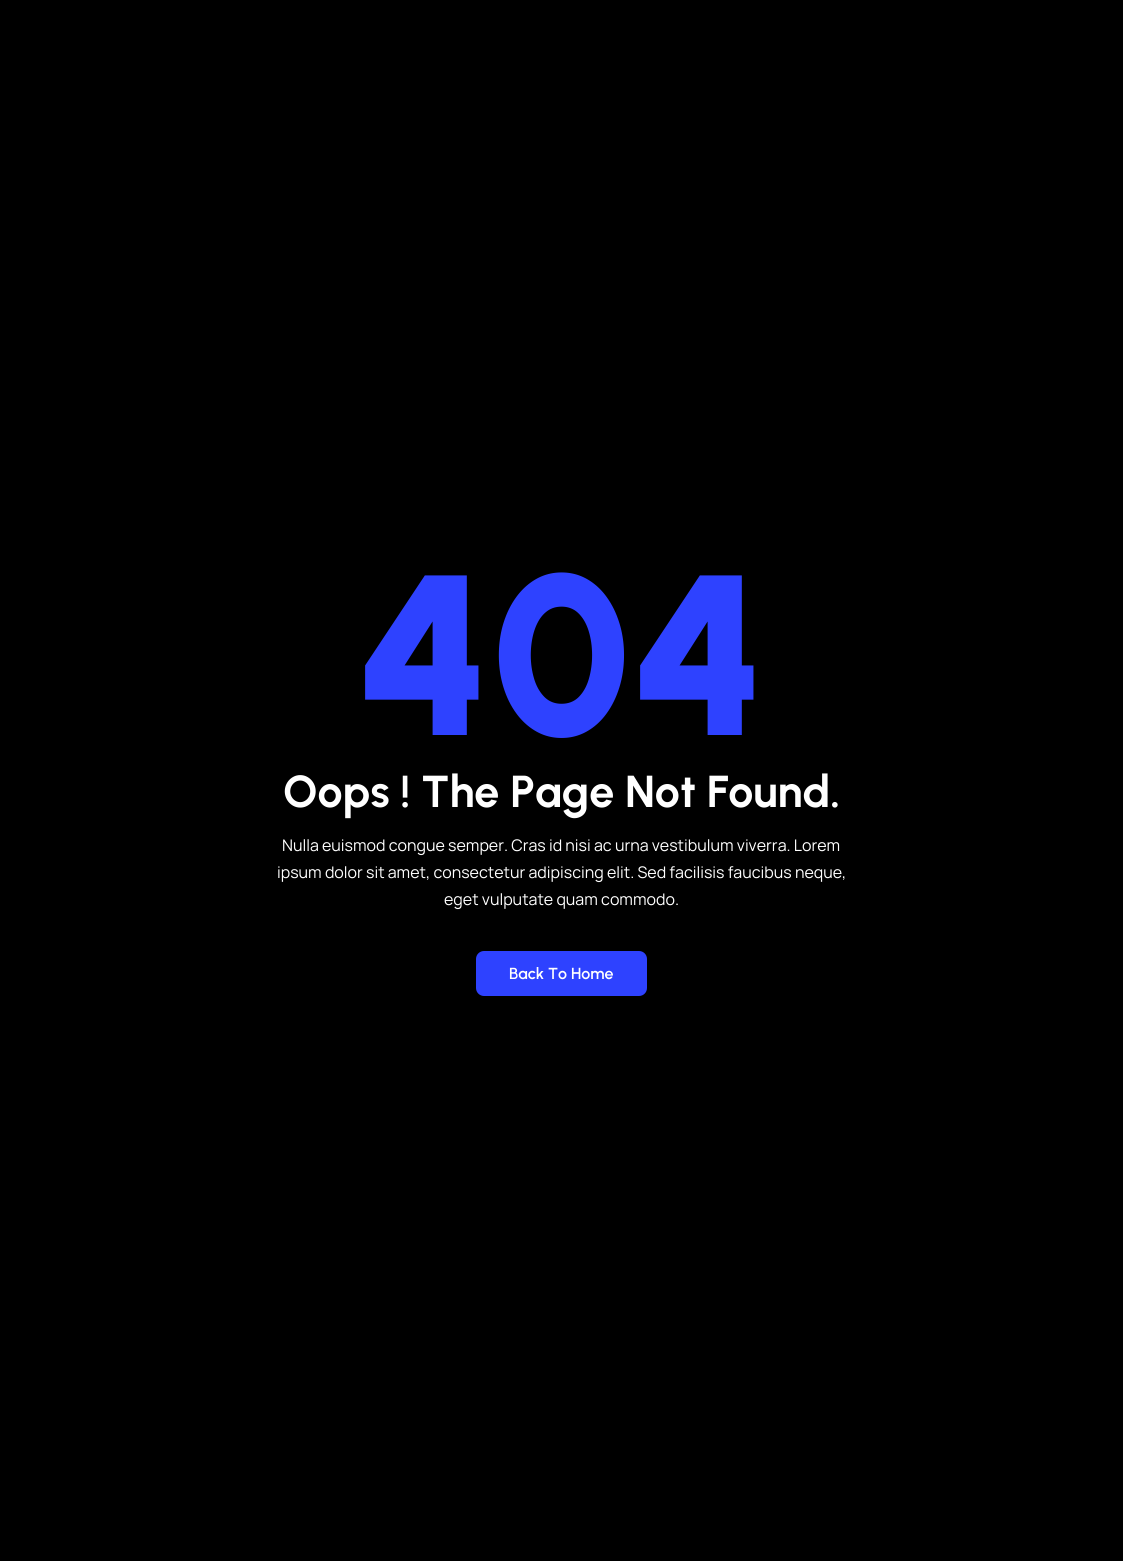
#include <cairo/cairo.h>
#include <math.h>
#include <stddef.h>

typedef struct { double x, y; const char *s; } line_t;
static cairo_t *cr;

static void rgb(unsigned color)
{
	cairo_set_source_rgb(cr, (color >> 16) / 255.0, (color >> 8 & 255) / 255.0, (color & 255) / 255.0);
}

static void rrect(double x, double y, double w, double h, double r)
{
	cairo_new_sub_path(cr);
	cairo_arc(cr, x + w - r, y + h - r, r, 0, M_PI / 2);
	cairo_arc(cr, x + r, y + h - r, r, M_PI / 2, M_PI);
	cairo_arc(cr, x + r, y + r, r, M_PI, 1.5 * M_PI);
	cairo_arc(cr, x + w - r, y + r, r, 1.5 * M_PI, 2 * M_PI);
	cairo_close_path(cr);
}

int main(void) {
	cairo_surface_t *surface = cairo_image_surface_create(CAIRO_FORMAT_RGB24, 1123, 1561);
	cr = cairo_create(surface);
	cairo_font_options_t *options = cairo_font_options_create();
	cairo_font_options_set_hint_metrics(options, CAIRO_HINT_METRICS_OFF);
	cairo_font_options_set_hint_style(options, CAIRO_HINT_STYLE_NONE);
	cairo_set_font_options(cr, options);
	cairo_set_miter_limit(cr, 4);
	rgb(0x000000);
	cairo_paint(cr);
	rgb(0x2e42ff);
	rrect(476, 951, 171, 45, 8);
	cairo_fill(cr);
	cairo_select_font_face(cr, "Urbanist Black", CAIRO_FONT_SLANT_NORMAL, CAIRO_FONT_WEIGHT_NORMAL);
	cairo_set_font_size(cr, 228);
	cairo_move_to(cr, 356, 735);
	cairo_show_text(cr, "404");
	cairo_select_font_face(cr, "Urbanist", CAIRO_FONT_SLANT_NORMAL, CAIRO_FONT_WEIGHT_BOLD);
	cairo_set_font_size(cr, 44.75);
	rgb(0xffffff);
	cairo_move_to(cr, 283, 807);
	cairo_show_text(cr, "Oops ! The Page Not Found.");
	cairo_select_font_face(cr, "Manrope", CAIRO_FONT_SLANT_NORMAL, CAIRO_FONT_WEIGHT_NORMAL);
	cairo_set_font_size(cr, 16);
	{
		static const line_t items[] = {
			{282, 851, "Nulla euismod congue semper. Cras id nisi ac urna vestibulum viverra. Lorem"},
			{277, 878, "ipsum dolor sit amet, consectetur adipiscing elit. Sed facilisis faucibus neque,"},
			{444, 905, "eget vulputate quam commodo."},
		};
		for (size_t i = 0; i < sizeof items / sizeof *items; i++) {
			cairo_move_to(cr, items[i].x, items[i].y);
			cairo_show_text(cr, items[i].s);
		}
	}
	cairo_select_font_face(cr, "Urbanist SemiBold", CAIRO_FONT_SLANT_NORMAL, CAIRO_FONT_WEIGHT_NORMAL);
	cairo_move_to(cr, 509, 979);
	cairo_show_text(cr, "Back To Home");
	cairo_surface_write_to_png(surface, "page.png");
	cairo_font_options_destroy(options);
	cairo_destroy(cr);
	cairo_surface_destroy(surface);
	return 0;
}
